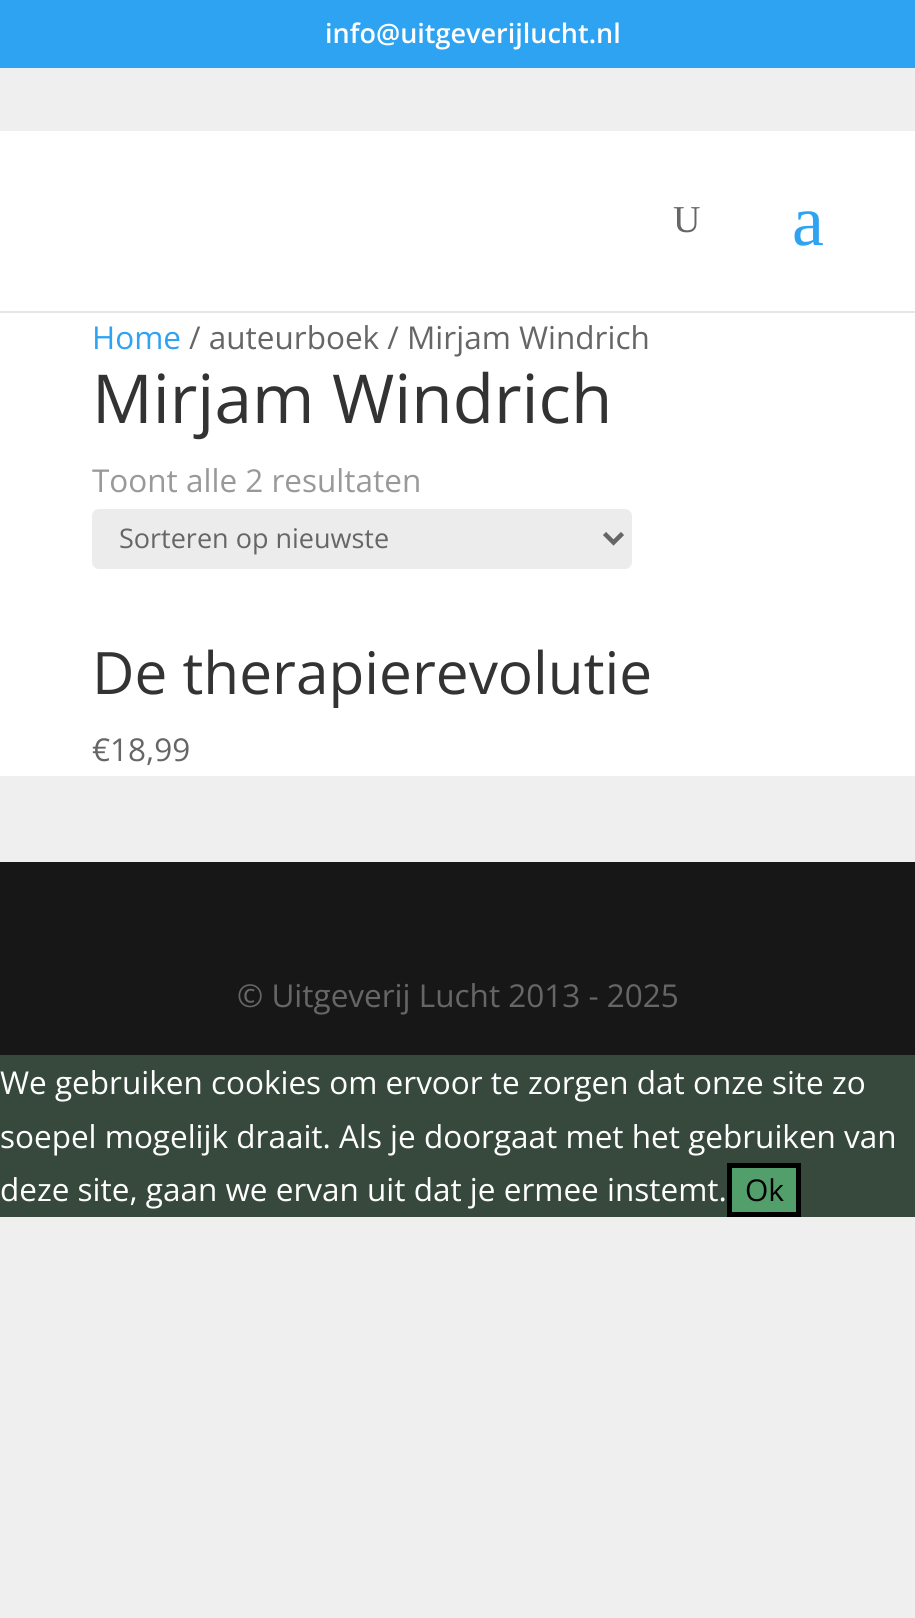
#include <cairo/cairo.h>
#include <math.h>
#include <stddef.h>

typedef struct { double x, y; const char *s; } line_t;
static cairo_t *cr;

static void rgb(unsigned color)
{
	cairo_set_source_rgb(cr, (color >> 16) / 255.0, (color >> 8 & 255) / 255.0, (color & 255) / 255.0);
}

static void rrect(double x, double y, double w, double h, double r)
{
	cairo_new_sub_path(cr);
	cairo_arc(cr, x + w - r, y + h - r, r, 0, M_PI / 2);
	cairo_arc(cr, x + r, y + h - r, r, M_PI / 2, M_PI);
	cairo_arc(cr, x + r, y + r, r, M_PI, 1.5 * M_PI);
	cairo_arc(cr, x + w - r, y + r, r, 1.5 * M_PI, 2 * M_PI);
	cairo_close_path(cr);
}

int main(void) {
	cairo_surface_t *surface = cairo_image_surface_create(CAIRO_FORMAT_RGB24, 915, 1618);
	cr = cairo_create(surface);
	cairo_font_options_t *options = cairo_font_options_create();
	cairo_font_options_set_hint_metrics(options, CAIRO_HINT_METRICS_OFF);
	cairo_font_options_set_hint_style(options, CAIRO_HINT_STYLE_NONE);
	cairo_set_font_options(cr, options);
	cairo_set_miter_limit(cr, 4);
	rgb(0xefefef);
	cairo_paint(cr);
	rgb(0x2ea3f2);
	cairo_rectangle(cr, 0, 0, 915, 68);
	cairo_fill(cr);
	rgb(0xe6e6e6);
	cairo_new_path(cr);
	cairo_move_to(cr, 0, 310);
	cairo_line_to(cr, 0, 313);
	cairo_line_to(cr, 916, 313);
	cairo_line_to(cr, 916, 133);
	cairo_line_to(cr, 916, 310);
	cairo_close_path(cr);
	cairo_fill(cr);
	rgb(0xffffff);
	cairo_rectangle(cr, 0, 131, 915, 180);
	cairo_fill(cr);
	cairo_rectangle(cr, 0, 313, 915, 463);
	cairo_fill(cr);
	rgb(0xececec);
	rrect(92, 509, 540, 60, 7);
	cairo_fill(cr);
	cairo_new_path(cr);
	cairo_move_to(cr, 604.5, 533.5);
	cairo_line_to(cr, 613.5, 542.5);
	cairo_line_to(cr, 622.5, 533.5);
	rgb(0x666666);
	cairo_set_line_width(cr, 4.5);
	cairo_stroke(cr);
	rgb(0x171717);
	cairo_rectangle(cr, 0, 862, 915, 193);
	cairo_fill(cr);
	rgb(0x36493c);
	cairo_rectangle(cr, 0, 1055, 915, 162);
	cairo_fill(cr);
	rgb(0x529f6c);
	cairo_rectangle(cr, 729.5, 1165.5, 69, 49);
	cairo_fill_preserve(cr);
	rgb(0x000000);
	cairo_set_line_width(cr, 5);
	cairo_stroke(cr);
	cairo_select_font_face(cr, "Open Sans SemiBold", CAIRO_FONT_SLANT_NORMAL, CAIRO_FONT_WEIGHT_NORMAL);
	cairo_set_font_size(cr, 27);
	rgb(0xffffff);
	cairo_move_to(cr, 325, 43);
	cairo_show_text(cr, "info@uitgeverijlucht.nl");
	cairo_select_font_face(cr, "Liberation Serif", CAIRO_FONT_SLANT_NORMAL, CAIRO_FONT_WEIGHT_NORMAL);
	cairo_set_font_size(cr, 38);
	rgb(0x666666);
	cairo_move_to(cr, 673, 232);
	cairo_show_text(cr, "U");
	cairo_set_font_size(cr, 72);
	rgb(0x2ea3f2);
	cairo_move_to(cr, 792, 245);
	cairo_show_text(cr, "a");
	cairo_select_font_face(cr, "Open Sans", CAIRO_FONT_SLANT_NORMAL, CAIRO_FONT_WEIGHT_NORMAL);
	cairo_set_font_size(cr, 31.5);
	cairo_move_to(cr, 92, 349);
	cairo_show_text(cr, "Home");
	rgb(0x666666);
	cairo_move_to(cr, 189, 349);
	cairo_show_text(cr, "/ auteurboek / Mirjam Windrich");
	cairo_set_font_size(cr, 67.5);
	rgb(0x333333);
	cairo_move_to(cr, 92, 423);
	cairo_show_text(cr, "Mirjam Windrich");
	cairo_set_font_size(cr, 31.5);
	rgb(0x999999);
	cairo_move_to(cr, 92, 492);
	cairo_show_text(cr, "Toont alle 2 resultaten");
	cairo_set_font_size(cr, 27);
	rgb(0x666666);
	cairo_move_to(cr, 119, 548);
	cairo_show_text(cr, "Sorteren op nieuwste");
	cairo_set_font_size(cr, 58.5);
	rgb(0x333333);
	cairo_move_to(cr, 92, 694);
	cairo_show_text(cr, "De therapierevolutie");
	cairo_set_font_size(cr, 31.5);
	rgb(0x666666);
	cairo_move_to(cr, 92, 761);
	cairo_show_text(cr, "€18,99");
	cairo_move_to(cr, 237, 1007);
	cairo_show_text(cr, "© Uitgeverij Lucht 2013 - 2025");
	rgb(0xffffff);
	{
		static const line_t items[] = {
			{0, 1094, "We gebruiken cookies om ervoor te zorgen dat onze site zo"},
			{0, 1148, "soepel mogelijk draait. Als je doorgaat met het gebruiken van"},
			{0, 1201, "deze site, gaan we ervan uit dat je ermee instemt."},
		};
		for (size_t i = 0; i < sizeof items / sizeof *items; i++) {
			cairo_move_to(cr, items[i].x, items[i].y);
			cairo_show_text(cr, items[i].s);
		}
	}
	cairo_set_font_size(cr, 30);
	rgb(0x000000);
	cairo_move_to(cr, 745, 1201);
	cairo_show_text(cr, "Ok");
	cairo_surface_write_to_png(surface, "page.png");
	cairo_font_options_destroy(options);
	cairo_destroy(cr);
	cairo_surface_destroy(surface);
	return 0;
}
